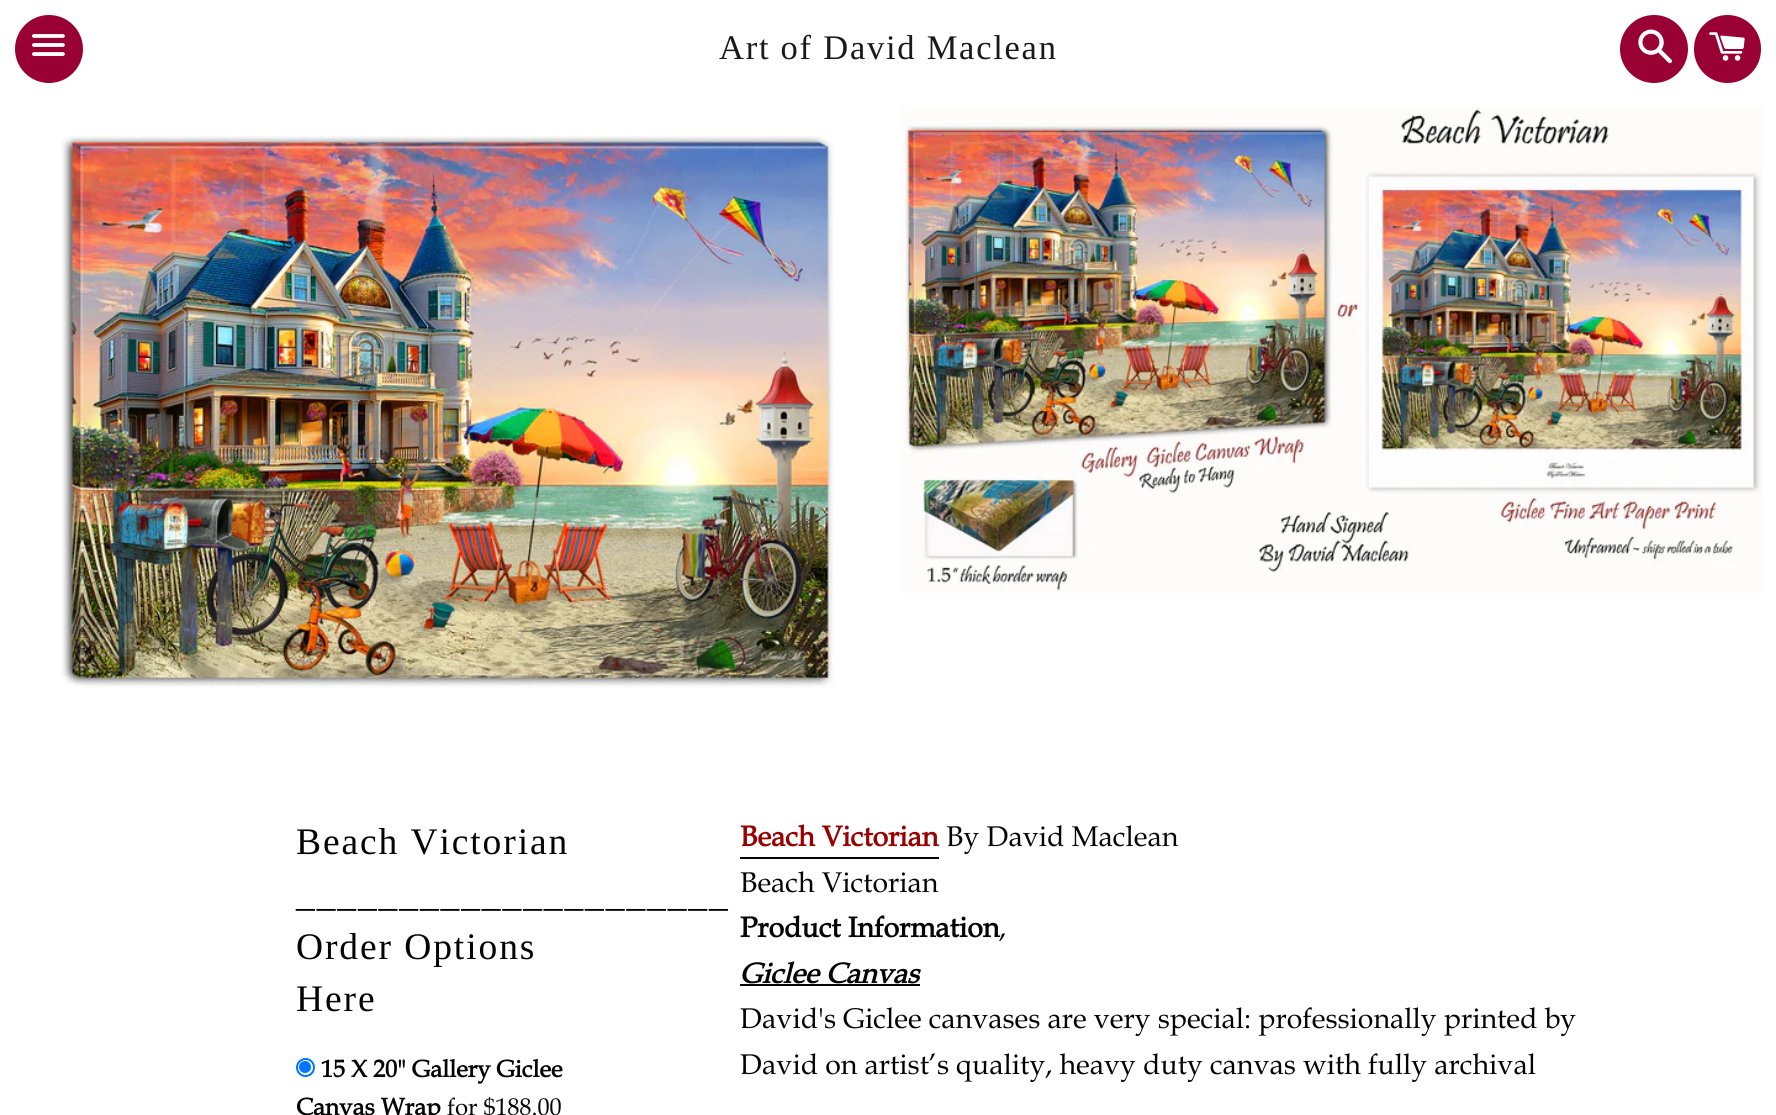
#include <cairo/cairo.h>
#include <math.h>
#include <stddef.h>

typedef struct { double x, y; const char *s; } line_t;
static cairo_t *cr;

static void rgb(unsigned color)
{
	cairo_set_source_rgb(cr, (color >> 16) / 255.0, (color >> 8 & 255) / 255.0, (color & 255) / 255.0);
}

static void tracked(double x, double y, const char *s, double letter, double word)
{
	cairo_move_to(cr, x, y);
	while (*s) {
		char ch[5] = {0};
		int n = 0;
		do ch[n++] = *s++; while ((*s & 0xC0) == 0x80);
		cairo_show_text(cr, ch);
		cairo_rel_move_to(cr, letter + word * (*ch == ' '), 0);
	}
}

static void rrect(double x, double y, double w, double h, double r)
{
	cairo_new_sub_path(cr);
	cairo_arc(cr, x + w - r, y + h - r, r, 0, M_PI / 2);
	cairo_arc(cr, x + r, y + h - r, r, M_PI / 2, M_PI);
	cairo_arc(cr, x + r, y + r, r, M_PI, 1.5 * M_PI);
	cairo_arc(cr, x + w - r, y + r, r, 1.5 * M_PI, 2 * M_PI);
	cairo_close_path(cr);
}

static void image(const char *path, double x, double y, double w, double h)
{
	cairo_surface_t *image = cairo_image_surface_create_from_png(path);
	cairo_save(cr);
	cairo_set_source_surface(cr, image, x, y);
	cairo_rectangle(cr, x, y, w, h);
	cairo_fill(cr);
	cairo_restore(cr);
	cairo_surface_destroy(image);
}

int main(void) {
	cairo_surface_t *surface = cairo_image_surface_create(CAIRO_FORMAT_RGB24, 1776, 1115);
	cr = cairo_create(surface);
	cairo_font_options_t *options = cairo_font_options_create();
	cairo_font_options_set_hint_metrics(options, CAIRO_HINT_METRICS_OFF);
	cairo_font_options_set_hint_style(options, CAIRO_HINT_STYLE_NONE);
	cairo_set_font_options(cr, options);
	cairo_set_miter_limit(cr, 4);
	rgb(0xffffff);
	cairo_paint(cr);
	rgb(0x990033);
	cairo_arc(cr, 49, 49, 34, 0, 2 * M_PI);
	cairo_fill(cr);
	image("img/1.png", 32, 34, 33, 22);
	cairo_arc(cr, 1654, 49, 34, 0, 2 * M_PI);
	cairo_fill(cr);
	image("img/2.png", 1638, 29, 34, 35);
	rrect(1694, 15, 67, 68, 33.5);
	cairo_fill(cr);
	image("img/3.png", 1709, 32, 36, 29);
	image("img/4.png", 61, 136, 773, 552);
	image("img/5.png", 900, 107, 863, 486);
	cairo_arc(cr, 305.5, 1067.5, 8.5, 0, 2 * M_PI);
	rgb(0x0075ff);
	cairo_stroke(cr);
	cairo_arc(cr, 305, 1067, 6, 0, 2 * M_PI);
	cairo_fill(cr);
	rgb(0x040404);
	cairo_rectangle(cr, 740, 857, 199, 2);
	cairo_fill(cr);
	cairo_rectangle(cr, 740, 984, 180, 2);
	cairo_fill(cr);
	cairo_select_font_face(cr, "Liberation Serif", CAIRO_FONT_SLANT_NORMAL, CAIRO_FONT_WEIGHT_NORMAL);
	cairo_set_font_size(cr, 34.5);
	rgb(0x1a1a1a);
	tracked(719, 59, "Art of David Maclean", 1.75, 0);
	cairo_set_font_size(cr, 37.5);
	rgb(0x040404);
	{
		static const line_t items[] = {
			{296, 854, "Beach Victorian"},
			{296, 906, "_____________________"},
			{296, 959, "Order Options"},
			{296, 1011, "Here"},
		};
		for (size_t i = 0; i < sizeof items / sizeof *items; i++) {
			tracked(items[i].x, items[i].y, items[i].s, 1.9, 0);
		}
	}
	cairo_select_font_face(cr, "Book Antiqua", CAIRO_FONT_SLANT_NORMAL, CAIRO_FONT_WEIGHT_BOLD);
	cairo_set_font_size(cr, 24);
	cairo_move_to(cr, 321, 1077);
	cairo_show_text(cr, "15 X 20\" Gallery Giclee");
	cairo_move_to(cr, 296, 1115);
	cairo_show_text(cr, "Canvas Wrap");
	cairo_select_font_face(cr, "Book Antiqua", CAIRO_FONT_SLANT_NORMAL, CAIRO_FONT_WEIGHT_NORMAL);
	cairo_move_to(cr, 447, 1115);
	cairo_show_text(cr, "for $188.00");
	cairo_select_font_face(cr, "Book Antiqua", CAIRO_FONT_SLANT_NORMAL, CAIRO_FONT_WEIGHT_BOLD);
	cairo_set_font_size(cr, 28.5);
	rgb(0x990000);
	cairo_move_to(cr, 740, 846);
	cairo_show_text(cr, "Beach Victorian");
	cairo_select_font_face(cr, "Book Antiqua", CAIRO_FONT_SLANT_NORMAL, CAIRO_FONT_WEIGHT_NORMAL);
	rgb(0x040404);
	cairo_move_to(cr, 946, 846);
	cairo_show_text(cr, "By David Maclean");
	cairo_move_to(cr, 740, 892);
	cairo_show_text(cr, "Beach Victorian");
	cairo_select_font_face(cr, "Book Antiqua", CAIRO_FONT_SLANT_NORMAL, CAIRO_FONT_WEIGHT_BOLD);
	cairo_move_to(cr, 740, 937);
	cairo_show_text(cr, "Product Information");
	cairo_select_font_face(cr, "Book Antiqua", CAIRO_FONT_SLANT_NORMAL, CAIRO_FONT_WEIGHT_NORMAL);
	cairo_move_to(cr, 999, 937);
	cairo_show_text(cr, ",");
	cairo_select_font_face(cr, "Book Antiqua", CAIRO_FONT_SLANT_ITALIC, CAIRO_FONT_WEIGHT_BOLD);
	cairo_move_to(cr, 740, 983);
	cairo_show_text(cr, "Giclee Canvas");
	cairo_select_font_face(cr, "Book Antiqua", CAIRO_FONT_SLANT_NORMAL, CAIRO_FONT_WEIGHT_NORMAL);
	cairo_move_to(cr, 740, 1028);
	cairo_show_text(cr, "David's Giclee canvases are very special: professionally printed by");
	cairo_move_to(cr, 740, 1074);
	cairo_show_text(cr, "David on artist’s quality, heavy duty canvas with fully archival");
	cairo_surface_write_to_png(surface, "page.png");
	cairo_font_options_destroy(options);
	cairo_destroy(cr);
	cairo_surface_destroy(surface);
	return 0;
}
